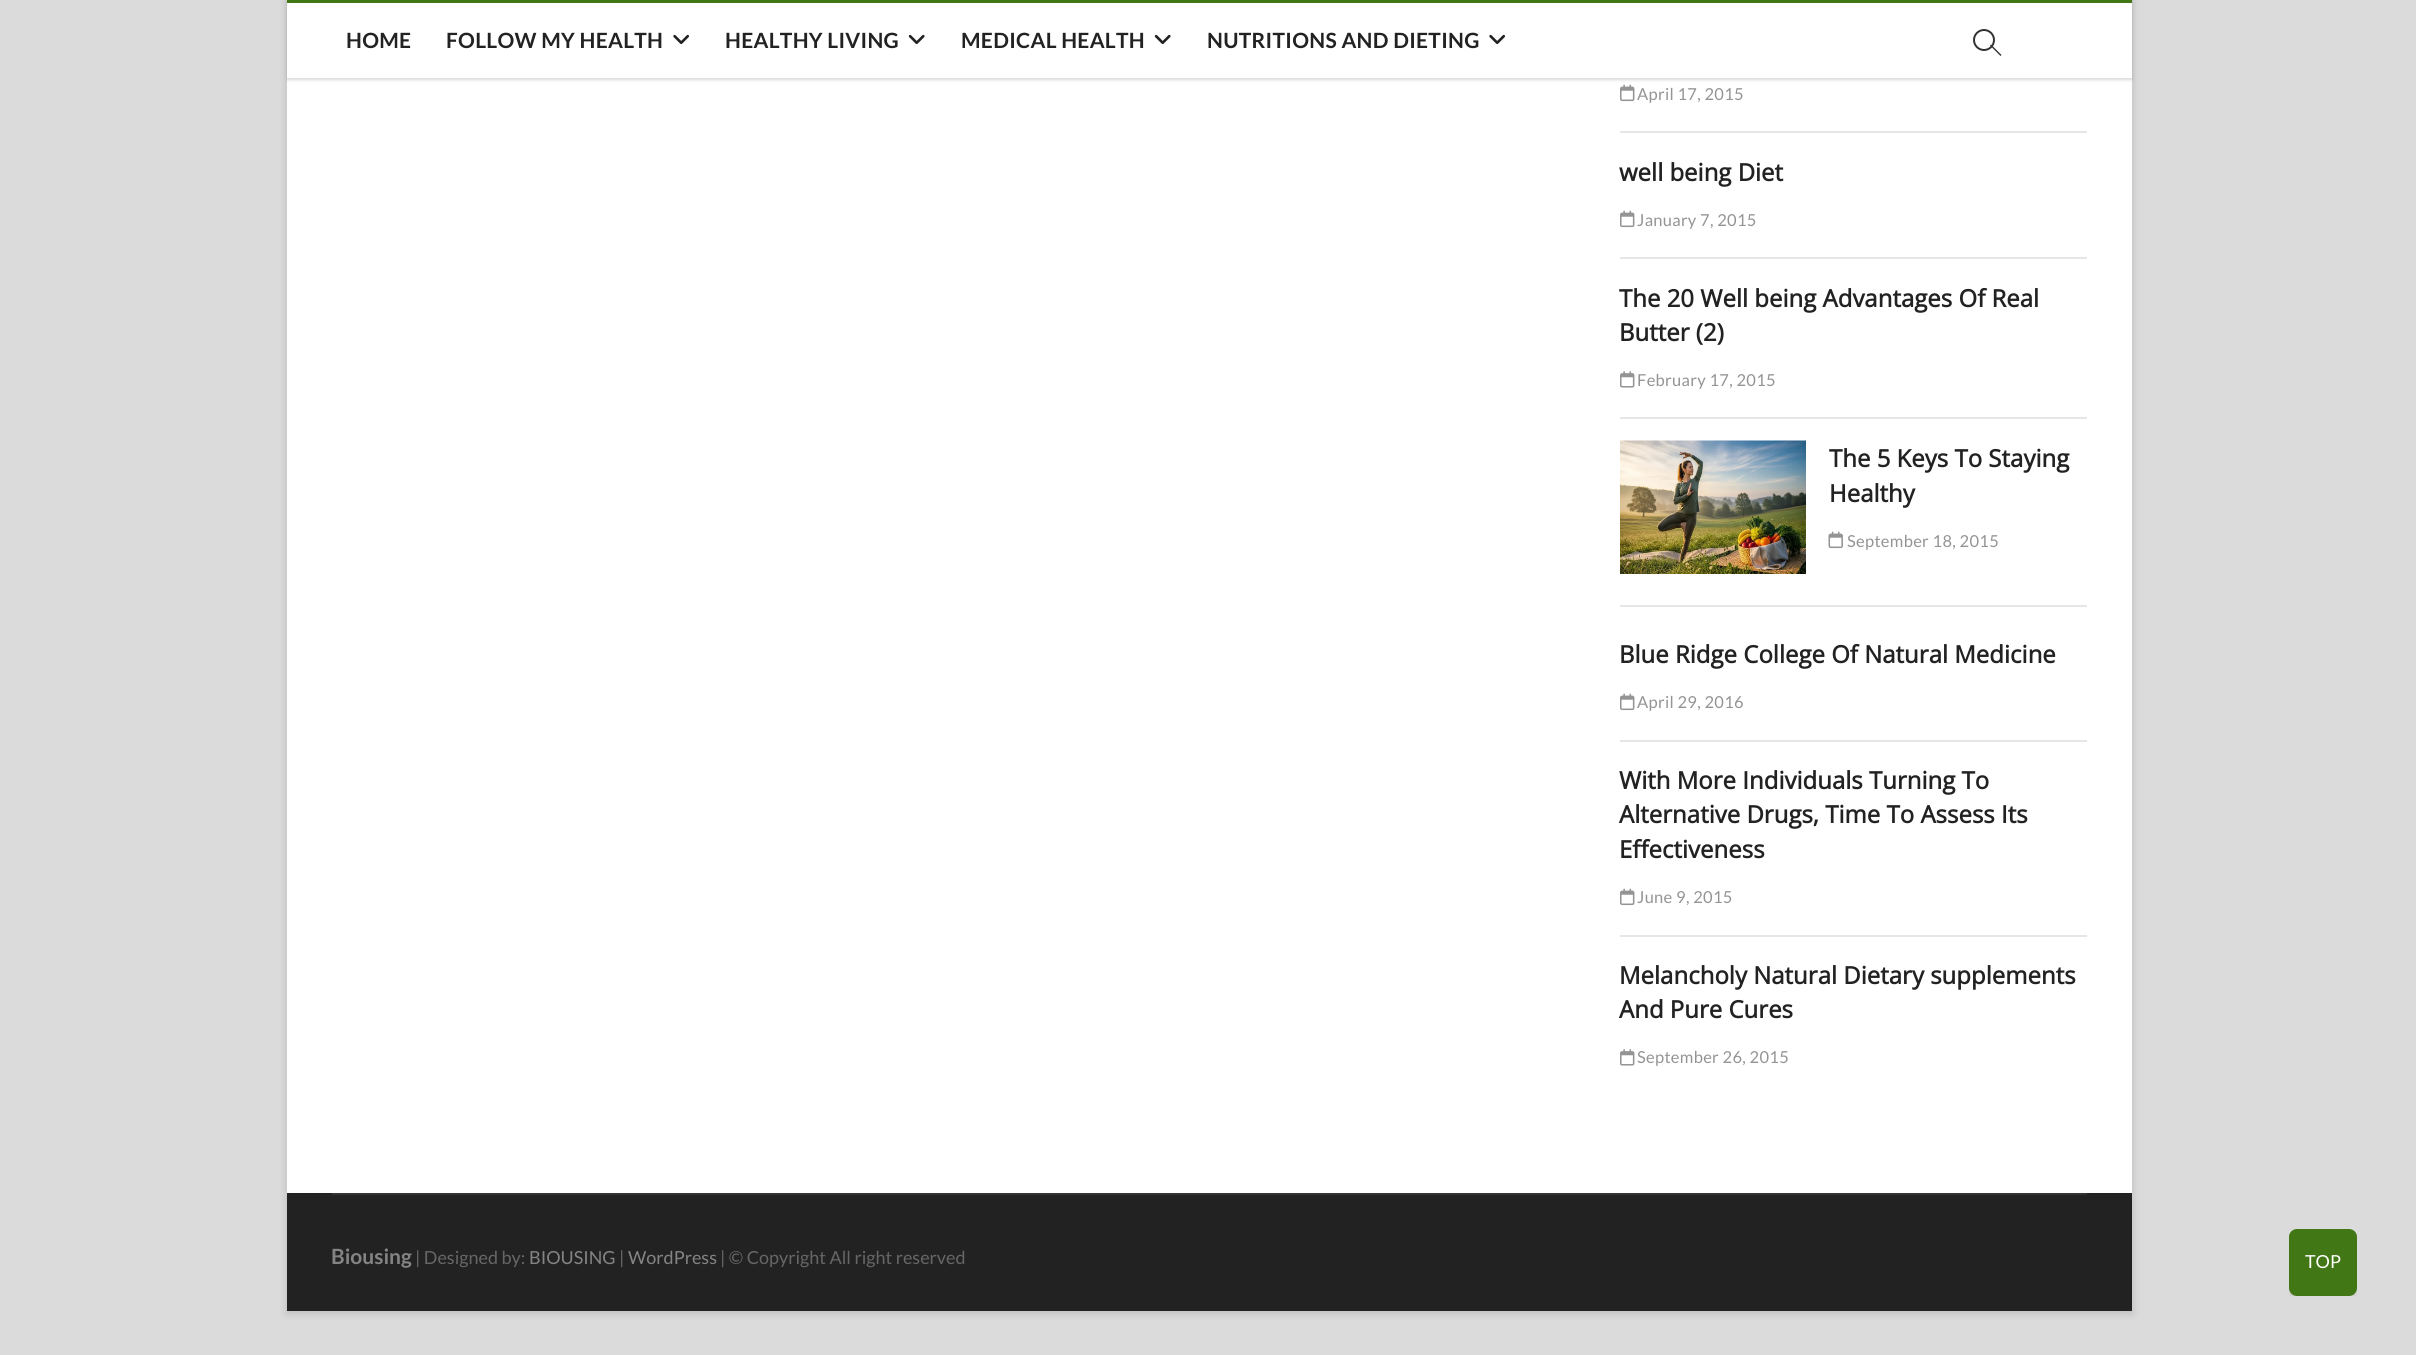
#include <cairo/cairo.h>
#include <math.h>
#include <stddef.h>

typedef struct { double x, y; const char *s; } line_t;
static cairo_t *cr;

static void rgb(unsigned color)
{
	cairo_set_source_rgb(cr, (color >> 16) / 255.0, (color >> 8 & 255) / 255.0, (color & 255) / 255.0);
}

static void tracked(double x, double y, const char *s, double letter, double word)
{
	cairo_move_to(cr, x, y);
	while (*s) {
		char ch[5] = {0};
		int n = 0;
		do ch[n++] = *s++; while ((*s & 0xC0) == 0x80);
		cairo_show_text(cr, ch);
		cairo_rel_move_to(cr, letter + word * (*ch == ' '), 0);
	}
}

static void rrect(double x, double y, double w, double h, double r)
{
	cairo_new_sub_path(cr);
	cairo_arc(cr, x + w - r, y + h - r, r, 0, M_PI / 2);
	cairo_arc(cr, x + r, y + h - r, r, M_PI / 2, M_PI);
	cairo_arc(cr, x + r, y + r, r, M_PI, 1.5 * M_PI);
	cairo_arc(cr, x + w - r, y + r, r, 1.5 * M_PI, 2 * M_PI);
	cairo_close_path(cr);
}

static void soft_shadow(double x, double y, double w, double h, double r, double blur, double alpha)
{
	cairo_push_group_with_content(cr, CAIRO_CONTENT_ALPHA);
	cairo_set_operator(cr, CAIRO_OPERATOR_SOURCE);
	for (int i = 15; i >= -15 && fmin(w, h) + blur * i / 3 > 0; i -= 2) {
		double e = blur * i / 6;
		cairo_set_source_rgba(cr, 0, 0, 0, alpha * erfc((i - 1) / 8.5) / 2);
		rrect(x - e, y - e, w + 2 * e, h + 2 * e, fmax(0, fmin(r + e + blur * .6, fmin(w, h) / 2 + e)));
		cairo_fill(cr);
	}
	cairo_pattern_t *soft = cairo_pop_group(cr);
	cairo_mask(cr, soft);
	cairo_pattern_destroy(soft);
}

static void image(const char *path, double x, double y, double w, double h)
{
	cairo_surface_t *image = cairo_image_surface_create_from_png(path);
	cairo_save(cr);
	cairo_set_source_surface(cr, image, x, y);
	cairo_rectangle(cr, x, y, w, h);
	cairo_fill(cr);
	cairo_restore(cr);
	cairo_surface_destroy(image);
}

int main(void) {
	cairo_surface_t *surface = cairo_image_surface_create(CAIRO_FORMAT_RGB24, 2416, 1355);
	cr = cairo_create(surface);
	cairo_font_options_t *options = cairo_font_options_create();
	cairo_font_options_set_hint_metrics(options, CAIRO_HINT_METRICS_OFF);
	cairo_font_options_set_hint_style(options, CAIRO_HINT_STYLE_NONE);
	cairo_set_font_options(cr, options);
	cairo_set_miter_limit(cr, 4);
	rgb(0xdbdbdb);
	cairo_paint(cr);
	rgb(0x000000);
	soft_shadow(287, -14, 1845, 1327, 0, 4.5, 0.15);
	rgb(0xffffff);
	cairo_rectangle(cr, 287, 3, 1845, 1190);
	cairo_fill(cr);
	image("img/3.png", 1620, 84, 15, 18);
	cairo_save(cr);
	cairo_set_fill_rule(cr, CAIRO_FILL_RULE_EVEN_ODD);
	cairo_new_path(cr);
	cairo_move_to(cr, 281, 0);
	cairo_line_to(cr, 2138, 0);
	cairo_line_to(cr, 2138, 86);
	cairo_line_to(cr, 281, 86);
	cairo_close_path(cr);
	cairo_move_to(cr, 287, 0);
	cairo_line_to(cr, 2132, 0);
	cairo_line_to(cr, 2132, 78);
	cairo_line_to(cr, 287, 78);
	cairo_close_path(cr);
	cairo_clip(cr);
	rgb(0x000000);
	soft_shadow(287, 2, 1845, 78, 0, 1.5, 0.15);
	cairo_restore(cr);
	cairo_set_source_rgba(cr, 1, 1, 1, 0.7);
	cairo_rectangle(cr, 2131, 3, 1, 75);
	cairo_fill(cr);
	rgb(0x417715);
	cairo_rectangle(cr, 287, 0, 1845, 3);
	cairo_fill(cr);
	image("img/1.png", 673, 34, 16, 10);
	image("img/2.png", 908, 34, 17, 10);
	image("img/2.png", 1154, 34, 17, 10);
	image("img/1.png", 1489, 34, 16, 10);
	cairo_arc(cr, 1984, 40, 10, 0, 2 * M_PI);
	rgb(0x333333);
	cairo_stroke(cr);
	cairo_new_path(cr);
	cairo_move_to(cr, 1990, 45.5);
	cairo_line_to(cr, 1991, 44.5);
	cairo_line_to(cr, 2001.5, 55);
	cairo_line_to(cr, 2000.5, 56);
	cairo_close_path(cr);
	cairo_fill(cr);
	rgb(0xe6e6e6);
	cairo_rectangle(cr, 1620, 131, 467, 2);
	cairo_fill(cr);
	cairo_rectangle(cr, 1620, 257, 467, 2);
	cairo_fill(cr);
	image("img/3.png", 1620, 210, 15, 18);
	cairo_rectangle(cr, 1620, 417, 467, 2);
	cairo_fill(cr);
	image("img/4.png", 1620, 371, 15, 17);
	cairo_rectangle(cr, 1620, 605, 467, 2);
	cairo_fill(cr);
	image("img/5.png", 1620, 440, 186, 134);
	image("img/6.png", 1828, 531, 15, 18);
	cairo_rectangle(cr, 1620, 740, 467, 2);
	cairo_fill(cr);
	image("img/3.png", 1620, 693, 15, 18);
	cairo_rectangle(cr, 1620, 935, 467, 2);
	cairo_fill(cr);
	image("img/3.png", 1620, 888, 15, 18);
	image("img/4.png", 1620, 1049, 15, 17);
	rgb(0x222222);
	cairo_rectangle(cr, 287, 1193, 1845, 118);
	cairo_fill(cr);
	rgb(0x333333);
	cairo_rectangle(cr, 332, 1193, 1755, 2);
	cairo_fill(cr);
	cairo_save(cr);
	cairo_rectangle(cr, 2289, 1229, 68, 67);
	cairo_clip(cr);
	rgb(0x000000);
	soft_shadow(2289, 1232, 68, 67, 8, 2, 0.08);
	cairo_restore(cr);
	rgb(0x417715);
	rrect(2289, 1229, 68, 67, 8);
	cairo_fill(cr);
	cairo_select_font_face(cr, "Lato", CAIRO_FONT_SLANT_NORMAL, CAIRO_FONT_WEIGHT_BOLD);
	cairo_set_font_size(cr, 21);
	rgb(0x222222);
	{
		static const line_t items[] = {
			{346, 48, "HOME"},
			{446, 48, "FOLLOW MY HEALTH"},
			{725, 48, "HEALTHY LIVING"},
			{961, 48, "MEDICAL HEALTH"},
			{1207, 48, "NUTRITIONS AND DIETING"},
		};
		for (size_t i = 0; i < sizeof items / sizeof *items; i++) {
			tracked(items[i].x, items[i].y, items[i].s, 0.3, 0);
		}
	}
	cairo_select_font_face(cr, "Lato", CAIRO_FONT_SLANT_NORMAL, CAIRO_FONT_WEIGHT_NORMAL);
	cairo_set_font_size(cr, 16.5);
	rgb(0x949494);
	tracked(1637, 100, "April 17, 2015", 0.3, 0);
	cairo_select_font_face(cr, "Open Sans", CAIRO_FONT_SLANT_NORMAL, CAIRO_FONT_WEIGHT_BOLD);
	cairo_set_font_size(cr, 24);
	rgb(0x222222);
	cairo_move_to(cr, 1619, 181);
	cairo_show_text(cr, "well being Diet");
	cairo_select_font_face(cr, "Lato", CAIRO_FONT_SLANT_NORMAL, CAIRO_FONT_WEIGHT_NORMAL);
	cairo_set_font_size(cr, 16.5);
	rgb(0x949494);
	tracked(1637, 226, "January 7, 2015", 0.3, 0);
	cairo_select_font_face(cr, "Open Sans", CAIRO_FONT_SLANT_NORMAL, CAIRO_FONT_WEIGHT_BOLD);
	cairo_set_font_size(cr, 24);
	rgb(0x222222);
	cairo_move_to(cr, 1619, 307);
	cairo_show_text(cr, "The 20 Well being Advantages Of Real");
	cairo_move_to(cr, 1619, 341);
	cairo_show_text(cr, "Butter (2)");
	cairo_select_font_face(cr, "Lato", CAIRO_FONT_SLANT_NORMAL, CAIRO_FONT_WEIGHT_NORMAL);
	cairo_set_font_size(cr, 16.5);
	rgb(0x949494);
	tracked(1637, 386, "February 17, 2015", 0.3, 0);
	cairo_select_font_face(cr, "Open Sans", CAIRO_FONT_SLANT_NORMAL, CAIRO_FONT_WEIGHT_BOLD);
	cairo_set_font_size(cr, 24);
	rgb(0x222222);
	cairo_move_to(cr, 1829, 467);
	cairo_show_text(cr, "The 5 Keys To Staying");
	cairo_move_to(cr, 1829, 502);
	cairo_show_text(cr, "Healthy");
	cairo_select_font_face(cr, "Lato", CAIRO_FONT_SLANT_NORMAL, CAIRO_FONT_WEIGHT_NORMAL);
	cairo_set_font_size(cr, 16.5);
	rgb(0x949494);
	tracked(1847, 547, "September 18, 2015", 0.3, 0);
	cairo_select_font_face(cr, "Open Sans", CAIRO_FONT_SLANT_NORMAL, CAIRO_FONT_WEIGHT_BOLD);
	cairo_set_font_size(cr, 24);
	rgb(0x222222);
	cairo_move_to(cr, 1619, 663);
	cairo_show_text(cr, "Blue Ridge College Of Natural Medicine");
	cairo_select_font_face(cr, "Lato", CAIRO_FONT_SLANT_NORMAL, CAIRO_FONT_WEIGHT_NORMAL);
	cairo_set_font_size(cr, 16.5);
	rgb(0x949494);
	tracked(1637, 708, "April 29, 2016", 0.3, 0);
	cairo_select_font_face(cr, "Open Sans", CAIRO_FONT_SLANT_NORMAL, CAIRO_FONT_WEIGHT_BOLD);
	cairo_set_font_size(cr, 24);
	rgb(0x222222);
	{
		static const line_t items[] = {
			{1619, 789, "With More Individuals Turning To"},
			{1619, 823, "Alternative Drugs, Time To Assess Its"},
			{1619, 858, "Effectiveness"},
		};
		for (size_t i = 0; i < sizeof items / sizeof *items; i++) {
			cairo_move_to(cr, items[i].x, items[i].y);
			cairo_show_text(cr, items[i].s);
		}
	}
	cairo_select_font_face(cr, "Lato", CAIRO_FONT_SLANT_NORMAL, CAIRO_FONT_WEIGHT_NORMAL);
	cairo_set_font_size(cr, 16.5);
	rgb(0x949494);
	tracked(1637, 903, "June 9, 2015", 0.3, 0);
	cairo_select_font_face(cr, "Open Sans", CAIRO_FONT_SLANT_NORMAL, CAIRO_FONT_WEIGHT_BOLD);
	cairo_set_font_size(cr, 24);
	rgb(0x222222);
	cairo_move_to(cr, 1619, 984);
	cairo_show_text(cr, "Melancholy Natural Dietary supplements");
	cairo_move_to(cr, 1619, 1018);
	cairo_show_text(cr, "And Pure Cures");
	cairo_select_font_face(cr, "Lato", CAIRO_FONT_SLANT_NORMAL, CAIRO_FONT_WEIGHT_NORMAL);
	cairo_set_font_size(cr, 16.5);
	rgb(0x949494);
	tracked(1637, 1063, "September 26, 2015", 0.3, 0);
	cairo_select_font_face(cr, "Lato", CAIRO_FONT_SLANT_NORMAL, CAIRO_FONT_WEIGHT_BOLD);
	cairo_set_font_size(cr, 21);
	rgb(0x848484);
	cairo_move_to(cr, 331, 1264);
	cairo_show_text(cr, "Biousing");
	cairo_select_font_face(cr, "Lato", CAIRO_FONT_SLANT_NORMAL, CAIRO_FONT_WEIGHT_NORMAL);
	cairo_set_font_size(cr, 18);
	rgb(0x666666);
	cairo_move_to(cr, 415, 1264);
	cairo_show_text(cr, "| Designed by:");
	rgb(0x848484);
	cairo_move_to(cr, 529, 1264);
	cairo_show_text(cr, "BIOUSING");
	rgb(0x666666);
	cairo_move_to(cr, 619, 1264);
	cairo_show_text(cr, "|");
	rgb(0x848484);
	cairo_move_to(cr, 628, 1264);
	cairo_show_text(cr, "WordPress");
	rgb(0x666666);
	cairo_move_to(cr, 720, 1264);
	cairo_show_text(cr, "| © Copyright All right reserved");
	rgb(0xffffff);
	cairo_move_to(cr, 2305, 1268);
	cairo_show_text(cr, "TOP");
	cairo_surface_write_to_png(surface, "page.png");
	cairo_font_options_destroy(options);
	cairo_destroy(cr);
	cairo_surface_destroy(surface);
	return 0;
}
